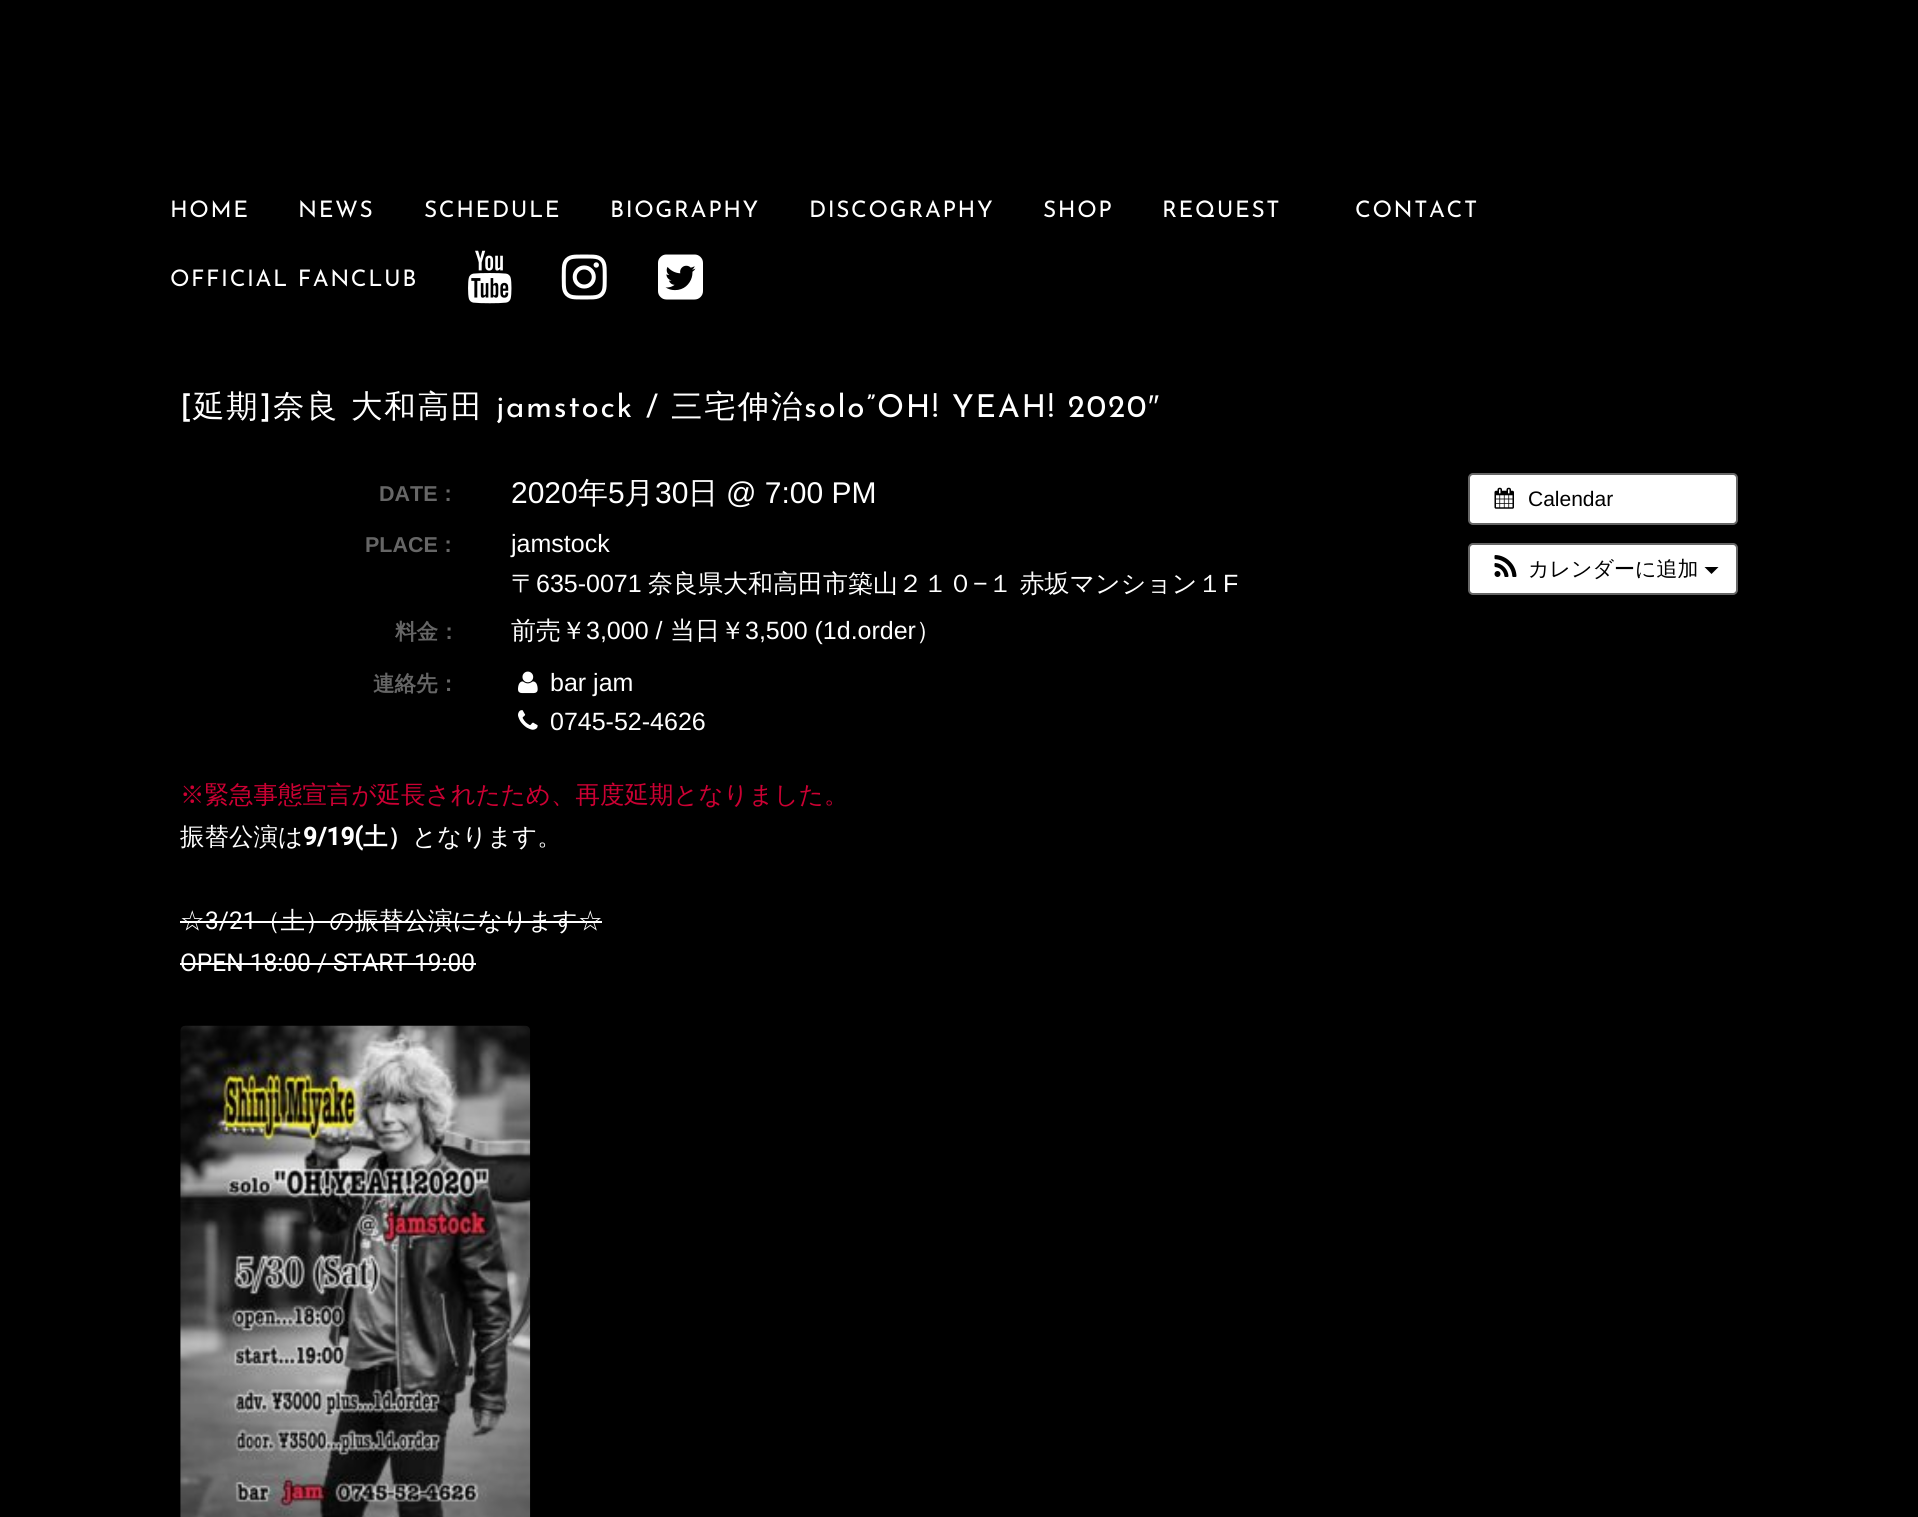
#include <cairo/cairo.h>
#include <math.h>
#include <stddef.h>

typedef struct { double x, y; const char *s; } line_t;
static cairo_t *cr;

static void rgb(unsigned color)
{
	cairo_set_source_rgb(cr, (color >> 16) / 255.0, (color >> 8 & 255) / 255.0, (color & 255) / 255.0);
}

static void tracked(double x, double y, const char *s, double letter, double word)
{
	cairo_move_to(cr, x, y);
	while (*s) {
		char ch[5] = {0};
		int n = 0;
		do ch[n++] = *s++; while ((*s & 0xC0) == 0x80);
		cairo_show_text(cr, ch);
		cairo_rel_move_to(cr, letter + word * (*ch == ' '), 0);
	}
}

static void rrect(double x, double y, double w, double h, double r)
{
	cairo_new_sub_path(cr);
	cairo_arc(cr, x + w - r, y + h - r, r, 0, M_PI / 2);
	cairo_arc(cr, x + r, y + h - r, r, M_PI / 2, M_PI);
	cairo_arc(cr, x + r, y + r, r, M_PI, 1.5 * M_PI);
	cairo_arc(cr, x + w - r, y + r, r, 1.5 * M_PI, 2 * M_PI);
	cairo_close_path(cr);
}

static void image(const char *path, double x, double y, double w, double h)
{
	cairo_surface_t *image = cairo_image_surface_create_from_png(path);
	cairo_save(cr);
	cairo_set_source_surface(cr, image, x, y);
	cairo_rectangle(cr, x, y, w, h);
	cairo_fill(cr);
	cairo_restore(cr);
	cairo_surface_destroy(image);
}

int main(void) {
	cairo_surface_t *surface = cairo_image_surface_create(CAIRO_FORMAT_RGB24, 1918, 1517);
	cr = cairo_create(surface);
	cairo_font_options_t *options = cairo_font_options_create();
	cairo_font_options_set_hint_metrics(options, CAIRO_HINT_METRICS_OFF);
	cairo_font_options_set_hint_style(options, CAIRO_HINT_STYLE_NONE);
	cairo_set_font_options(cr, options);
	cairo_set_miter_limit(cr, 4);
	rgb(0x000000);
	cairo_paint(cr);
	image("img/1.png", 468, 250, 44, 54);
	image("img/2.png", 561, 254, 46, 46);
	image("img/3.png", 658, 254, 45, 46);
	image("img/4.png", 518, 671, 20, 23);
	image("img/5.png", 518, 710, 20, 20);
	rgb(0xffffff);
	rrect(1469, 474, 268, 50, 4);
	cairo_fill_preserve(cr);
	rgb(0x666666);
	cairo_stroke(cr);
	image("img/6.png", 1494, 487, 20, 22);
	rgb(0xffffff);
	rrect(1469, 544, 268, 50, 4);
	cairo_fill_preserve(cr);
	rgb(0x666666);
	cairo_stroke(cr);
	image("img/7.png", 1494, 555, 23, 22);
	rgb(0x000000);
	cairo_new_path(cr);
	cairo_move_to(cr, 1704.5, 567);
	cairo_line_to(cr, 1718.5, 567);
	cairo_line_to(cr, 1711.5, 574);
	cairo_close_path(cr);
	cairo_fill(cr);
	rgb(0xffffff);
	cairo_rectangle(cr, 180, 921, 422, 2);
	cairo_fill(cr);
	cairo_rectangle(cr, 180, 963, 296, 2);
	cairo_fill(cr);
	image("img/8.png", 180, 1025, 351, 492);
	cairo_select_font_face(cr, "Josefin Sans", CAIRO_FONT_SLANT_NORMAL, CAIRO_FONT_WEIGHT_NORMAL);
	cairo_set_font_size(cr, 22.75);
	{
		static const line_t items[] = {
			{170, 217, "HOME"},
			{298, 217, "NEWS"},
			{424, 217, "SCHEDULE"},
			{610, 217, "BIOGRAPHY"},
			{809, 217, "DISCOGRAPHY"},
			{1043, 217, "SHOP"},
			{1162, 217, "REQUEST"},
			{1355, 217, "CONTACT"},
			{170, 286, "OFFICIAL FANCLUB"},
		};
		for (size_t i = 0; i < sizeof items / sizeof *items; i++) {
			tracked(items[i].x, items[i].y, items[i].s, 1.6, 0);
		}
	}
	cairo_set_font_size(cr, 31.5);
	tracked(180, 417, "[", 1.75, 0);
	cairo_select_font_face(cr, "WenQuanYi Zen Hei Medium", CAIRO_FONT_SLANT_NORMAL, CAIRO_FONT_WEIGHT_NORMAL);
	tracked(193, 417, "延期", 1.75, 0);
	cairo_select_font_face(cr, "Josefin Sans", CAIRO_FONT_SLANT_NORMAL, CAIRO_FONT_WEIGHT_NORMAL);
	tracked(260, 417, "]", 1.75, 0);
	cairo_select_font_face(cr, "WenQuanYi Zen Hei Medium", CAIRO_FONT_SLANT_NORMAL, CAIRO_FONT_WEIGHT_NORMAL);
	tracked(273, 417, "奈良", 1.75, 0);
	tracked(351, 417, "大和高田", 1.75, 0);
	cairo_select_font_face(cr, "Josefin Sans", CAIRO_FONT_SLANT_NORMAL, CAIRO_FONT_WEIGHT_NORMAL);
	tracked(496, 417, "jamstock /", 1.75, 0);
	cairo_select_font_face(cr, "WenQuanYi Zen Hei Medium", CAIRO_FONT_SLANT_NORMAL, CAIRO_FONT_WEIGHT_NORMAL);
	tracked(671, 417, "三宅伸治", 1.75, 0);
	cairo_select_font_face(cr, "Josefin Sans", CAIRO_FONT_SLANT_NORMAL, CAIRO_FONT_WEIGHT_NORMAL);
	tracked(804, 417, "solo”OH! YEAH! 2020", 1.75, 0);
	cairo_select_font_face(cr, "Liberation Sans", CAIRO_FONT_SLANT_NORMAL, CAIRO_FONT_WEIGHT_NORMAL);
	tracked(1148, 417, "″", 1.75, 0);
	cairo_select_font_face(cr, "Liberation Sans", CAIRO_FONT_SLANT_NORMAL, CAIRO_FONT_WEIGHT_BOLD);
	cairo_set_font_size(cr, 21.5);
	rgb(0x666666);
	cairo_move_to(cr, 379, 501);
	cairo_show_text(cr, "DATE");
	cairo_select_font_face(cr, "WenQuanYi Zen Hei", CAIRO_FONT_SLANT_NORMAL, CAIRO_FONT_WEIGHT_BOLD);
	cairo_move_to(cr, 437, 501);
	cairo_show_text(cr, "：");
	cairo_select_font_face(cr, "Liberation Sans", CAIRO_FONT_SLANT_NORMAL, CAIRO_FONT_WEIGHT_NORMAL);
	cairo_set_font_size(cr, 30);
	rgb(0xffffff);
	cairo_move_to(cr, 511, 503);
	cairo_show_text(cr, "2020");
	cairo_select_font_face(cr, "WenQuanYi Zen Hei Medium", CAIRO_FONT_SLANT_NORMAL, CAIRO_FONT_WEIGHT_NORMAL);
	cairo_move_to(cr, 578, 503);
	cairo_show_text(cr, "年");
	cairo_select_font_face(cr, "Liberation Sans", CAIRO_FONT_SLANT_NORMAL, CAIRO_FONT_WEIGHT_NORMAL);
	cairo_move_to(cr, 608, 503);
	cairo_show_text(cr, "5");
	cairo_select_font_face(cr, "WenQuanYi Zen Hei Medium", CAIRO_FONT_SLANT_NORMAL, CAIRO_FONT_WEIGHT_NORMAL);
	cairo_move_to(cr, 624, 503);
	cairo_show_text(cr, "月");
	cairo_select_font_face(cr, "Liberation Sans", CAIRO_FONT_SLANT_NORMAL, CAIRO_FONT_WEIGHT_NORMAL);
	cairo_move_to(cr, 655, 503);
	cairo_show_text(cr, "30");
	cairo_select_font_face(cr, "WenQuanYi Zen Hei Medium", CAIRO_FONT_SLANT_NORMAL, CAIRO_FONT_WEIGHT_NORMAL);
	cairo_move_to(cr, 688, 503);
	cairo_show_text(cr, "日");
	cairo_select_font_face(cr, "Liberation Sans", CAIRO_FONT_SLANT_NORMAL, CAIRO_FONT_WEIGHT_NORMAL);
	cairo_move_to(cr, 726, 503);
	cairo_show_text(cr, "@ 7:00 PM");
	cairo_select_font_face(cr, "Liberation Sans", CAIRO_FONT_SLANT_NORMAL, CAIRO_FONT_WEIGHT_BOLD);
	cairo_set_font_size(cr, 21.5);
	rgb(0x666666);
	cairo_move_to(cr, 365, 552);
	cairo_show_text(cr, "PLACE");
	cairo_select_font_face(cr, "WenQuanYi Zen Hei", CAIRO_FONT_SLANT_NORMAL, CAIRO_FONT_WEIGHT_BOLD);
	cairo_move_to(cr, 437, 552);
	cairo_show_text(cr, "：");
	cairo_select_font_face(cr, "Liberation Sans", CAIRO_FONT_SLANT_NORMAL, CAIRO_FONT_WEIGHT_NORMAL);
	cairo_set_font_size(cr, 25);
	rgb(0xffffff);
	cairo_move_to(cr, 511, 552);
	cairo_show_text(cr, "jamstock");
	cairo_select_font_face(cr, "WenQuanYi Zen Hei Medium", CAIRO_FONT_SLANT_NORMAL, CAIRO_FONT_WEIGHT_NORMAL);
	cairo_move_to(cr, 511, 592);
	cairo_show_text(cr, "〒");
	cairo_select_font_face(cr, "Liberation Sans", CAIRO_FONT_SLANT_NORMAL, CAIRO_FONT_WEIGHT_NORMAL);
	cairo_move_to(cr, 536, 592);
	cairo_show_text(cr, "635-0071");
	cairo_select_font_face(cr, "WenQuanYi Zen Hei Medium", CAIRO_FONT_SLANT_NORMAL, CAIRO_FONT_WEIGHT_NORMAL);
	cairo_move_to(cr, 648, 592);
	cairo_show_text(cr, "奈良県大和高田市築山２１０");
	cairo_select_font_face(cr, "Liberation Sans", CAIRO_FONT_SLANT_NORMAL, CAIRO_FONT_WEIGHT_NORMAL);
	cairo_move_to(cr, 973, 592);
	cairo_show_text(cr, "−");
	cairo_select_font_face(cr, "WenQuanYi Zen Hei Medium", CAIRO_FONT_SLANT_NORMAL, CAIRO_FONT_WEIGHT_NORMAL);
	tracked(988, 592, "１ 赤坂マンション１", 0, -1);
	cairo_select_font_face(cr, "Liberation Sans", CAIRO_FONT_SLANT_NORMAL, CAIRO_FONT_WEIGHT_NORMAL);
	cairo_move_to(cr, 1223, 592);
	cairo_show_text(cr, "F");
	cairo_select_font_face(cr, "WenQuanYi Zen Hei", CAIRO_FONT_SLANT_NORMAL, CAIRO_FONT_WEIGHT_BOLD);
	cairo_set_font_size(cr, 21.5);
	rgb(0x666666);
	cairo_move_to(cr, 395, 639);
	cairo_show_text(cr, "料金：");
	cairo_select_font_face(cr, "WenQuanYi Zen Hei Medium", CAIRO_FONT_SLANT_NORMAL, CAIRO_FONT_WEIGHT_NORMAL);
	cairo_set_font_size(cr, 25);
	rgb(0xffffff);
	cairo_move_to(cr, 511, 639);
	cairo_show_text(cr, "前売￥");
	cairo_select_font_face(cr, "Liberation Sans", CAIRO_FONT_SLANT_NORMAL, CAIRO_FONT_WEIGHT_NORMAL);
	cairo_move_to(cr, 586, 639);
	cairo_show_text(cr, "3,000 /");
	cairo_select_font_face(cr, "WenQuanYi Zen Hei Medium", CAIRO_FONT_SLANT_NORMAL, CAIRO_FONT_WEIGHT_NORMAL);
	cairo_move_to(cr, 670, 639);
	cairo_show_text(cr, "当日￥");
	cairo_select_font_face(cr, "Liberation Sans", CAIRO_FONT_SLANT_NORMAL, CAIRO_FONT_WEIGHT_NORMAL);
	cairo_move_to(cr, 745, 639);
	cairo_show_text(cr, "3,500 (1d.order");
	cairo_select_font_face(cr, "WenQuanYi Zen Hei Medium", CAIRO_FONT_SLANT_NORMAL, CAIRO_FONT_WEIGHT_NORMAL);
	cairo_move_to(cr, 916, 639);
	cairo_show_text(cr, "）");
	cairo_select_font_face(cr, "WenQuanYi Zen Hei", CAIRO_FONT_SLANT_NORMAL, CAIRO_FONT_WEIGHT_BOLD);
	cairo_set_font_size(cr, 21.5);
	rgb(0x666666);
	cairo_move_to(cr, 373, 691);
	cairo_show_text(cr, "連絡先：");
	cairo_select_font_face(cr, "Liberation Sans", CAIRO_FONT_SLANT_NORMAL, CAIRO_FONT_WEIGHT_NORMAL);
	cairo_set_font_size(cr, 25);
	rgb(0xffffff);
	cairo_move_to(cr, 550, 691);
	cairo_show_text(cr, "bar jam");
	cairo_move_to(cr, 550, 730);
	cairo_show_text(cr, "0745-52-4626");
	cairo_set_font_size(cr, 21);
	rgb(0x000000);
	cairo_move_to(cr, 1528, 506);
	cairo_show_text(cr, "Calendar");
	cairo_select_font_face(cr, "WenQuanYi Zen Hei Medium", CAIRO_FONT_SLANT_NORMAL, CAIRO_FONT_WEIGHT_NORMAL);
	cairo_move_to(cr, 1528, 576);
	cairo_show_text(cr, "カレンダーに追加");
	cairo_set_font_size(cr, 24.5);
	rgb(0xcc0033);
	cairo_move_to(cr, 180, 803);
	cairo_show_text(cr, "※緊急事態宣言が延長されたため、再度延期となりました。");
	rgb(0xffffff);
	cairo_move_to(cr, 180, 845);
	cairo_show_text(cr, "振替公演は");
	cairo_select_font_face(cr, "Roboto", CAIRO_FONT_SLANT_NORMAL, CAIRO_FONT_WEIGHT_BOLD);
	cairo_move_to(cr, 303, 845);
	cairo_show_text(cr, "9/19(");
	cairo_select_font_face(cr, "WenQuanYi Zen Hei", CAIRO_FONT_SLANT_NORMAL, CAIRO_FONT_WEIGHT_BOLD);
	cairo_move_to(cr, 363, 845);
	cairo_show_text(cr, "土）");
	cairo_select_font_face(cr, "WenQuanYi Zen Hei Medium", CAIRO_FONT_SLANT_NORMAL, CAIRO_FONT_WEIGHT_NORMAL);
	cairo_move_to(cr, 412, 845);
	cairo_show_text(cr, "となります。");
	cairo_move_to(cr, 180, 929);
	cairo_show_text(cr, "☆");
	cairo_select_font_face(cr, "Roboto", CAIRO_FONT_SLANT_NORMAL, CAIRO_FONT_WEIGHT_NORMAL);
	cairo_move_to(cr, 205, 929);
	cairo_show_text(cr, "3/21");
	cairo_select_font_face(cr, "WenQuanYi Zen Hei Medium", CAIRO_FONT_SLANT_NORMAL, CAIRO_FONT_WEIGHT_NORMAL);
	cairo_move_to(cr, 256, 929);
	cairo_show_text(cr, "（土）の振替公演になります☆");
	cairo_select_font_face(cr, "Roboto", CAIRO_FONT_SLANT_NORMAL, CAIRO_FONT_WEIGHT_NORMAL);
	cairo_move_to(cr, 180, 971);
	cairo_show_text(cr, "OPEN 18:00 / START 19:00");
	cairo_surface_write_to_png(surface, "page.png");
	cairo_font_options_destroy(options);
	cairo_destroy(cr);
	cairo_surface_destroy(surface);
	return 0;
}
